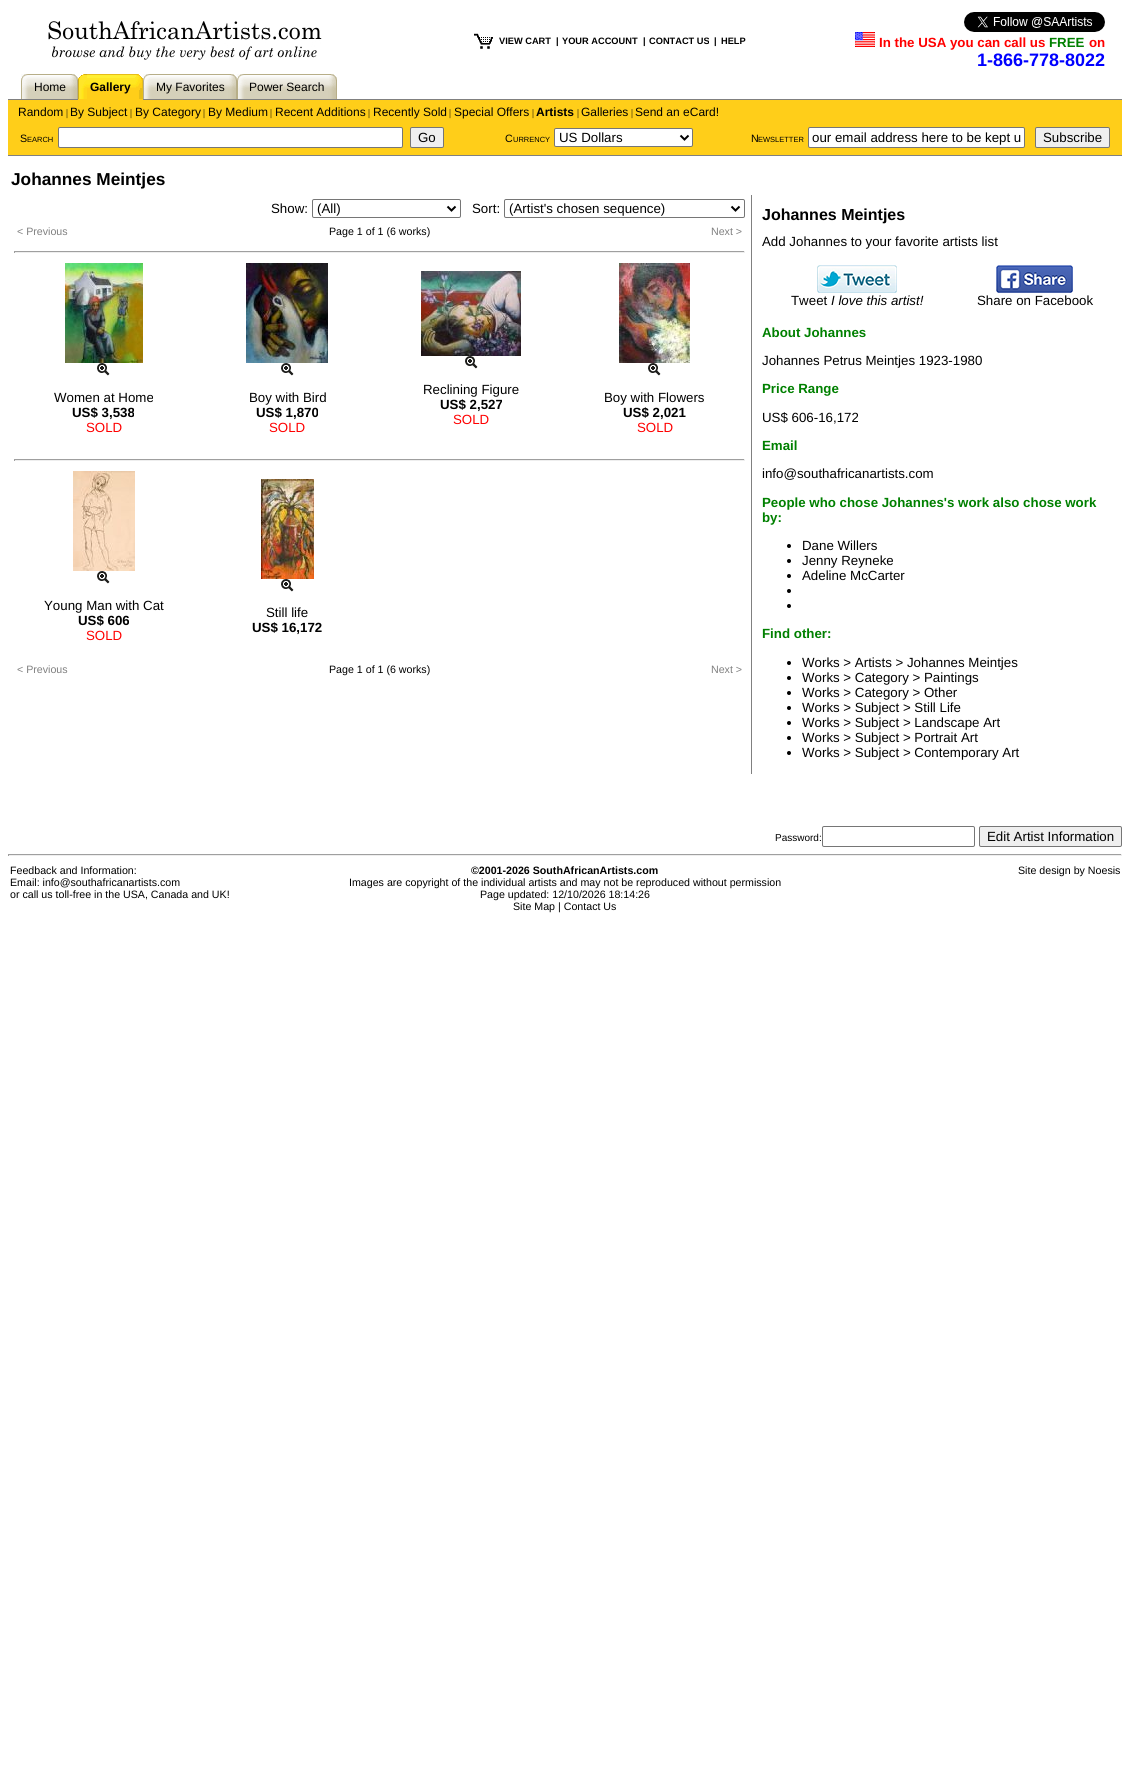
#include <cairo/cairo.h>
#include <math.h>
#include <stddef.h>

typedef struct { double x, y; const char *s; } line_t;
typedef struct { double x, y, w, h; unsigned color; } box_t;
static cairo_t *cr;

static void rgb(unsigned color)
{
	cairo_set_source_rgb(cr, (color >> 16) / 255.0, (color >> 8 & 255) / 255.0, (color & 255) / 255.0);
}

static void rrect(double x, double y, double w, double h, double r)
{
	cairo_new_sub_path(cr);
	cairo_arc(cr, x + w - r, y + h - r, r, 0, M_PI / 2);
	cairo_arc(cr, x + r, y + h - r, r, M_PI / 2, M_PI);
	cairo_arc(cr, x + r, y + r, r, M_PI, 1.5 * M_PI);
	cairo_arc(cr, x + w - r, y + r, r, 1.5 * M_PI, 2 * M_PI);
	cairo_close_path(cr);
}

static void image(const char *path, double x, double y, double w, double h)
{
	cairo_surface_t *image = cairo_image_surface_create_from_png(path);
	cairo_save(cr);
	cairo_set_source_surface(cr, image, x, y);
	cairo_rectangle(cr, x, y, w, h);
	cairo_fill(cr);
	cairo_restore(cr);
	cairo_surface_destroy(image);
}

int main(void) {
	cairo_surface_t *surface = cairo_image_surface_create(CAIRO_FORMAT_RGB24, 1130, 1772);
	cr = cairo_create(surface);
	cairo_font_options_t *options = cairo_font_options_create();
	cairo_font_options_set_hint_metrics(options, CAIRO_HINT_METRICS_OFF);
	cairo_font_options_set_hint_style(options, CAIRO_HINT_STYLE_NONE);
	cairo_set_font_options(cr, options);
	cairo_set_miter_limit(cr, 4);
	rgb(0xffffff);
	cairo_paint(cr);
	image("img/1.png", 48, 21, 274, 39);
	image("img/2.png", 474, 33, 19, 16);
	image("img/3.png", 964, 12, 141, 20);
	image("img/4.png", 855, 32, 20, 15);
	image("img/5.png", 21, 74, 9, 25);
	image("img/6.png", 69, 74, 9, 25);
	rgb(0xffce19);
	cairo_rectangle(cr, 78, 99, 65, 1);
	cairo_fill(cr);
	image("img/7.png", 78, 74, 9, 25);
	image("img/8.png", 134, 74, 9, 25);
	rgb(0x808080);
	cairo_rectangle(cr, 143, 99, 979, 1);
	cairo_fill(cr);
	image("img/5.png", 143, 74, 9, 25);
	image("img/9.png", 30, 74, 39, 25);
	image("img/10.png", 87, 74, 47, 25);
	image("img/11.png", 152, 74, 76, 25);
	image("img/6.png", 228, 74, 9, 25);
	image("img/5.png", 237, 74, 9, 25);
	image("img/12.png", 246, 74, 82, 25);
	image("img/6.png", 328, 74, 9, 25);
	{
		static const box_t items[] = {
			{8, 99, 70, 1, 0x808080},
			{8, 100, 1114, 55, 0xffce19},
			{8, 155, 1114, 1, 0x808080},
		};
		for (size_t i = 0; i < sizeof items / sizeof *items; i++) {
			rgb(items[i].color);
			cairo_rectangle(cr, items[i].x, items[i].y, items[i].w, items[i].h);
			cairo_fill(cr);
		}
	}
	rgb(0xffffff);
	rrect(58.5, 127.5, 344, 20, 1.5);
	cairo_fill_preserve(cr);
	rgb(0x767676);
	cairo_set_line_width(cr, 1);
	cairo_stroke(cr);
	rgb(0xefefef);
	rrect(410.5, 127.5, 33, 20, 1.5);
	cairo_fill_preserve(cr);
	rgb(0x767676);
	cairo_stroke(cr);
	rgb(0xffffff);
	rrect(554.5, 128.5, 138, 18, 1.5);
	cairo_fill_preserve(cr);
	rgb(0x767676);
	cairo_stroke(cr);
	cairo_new_path(cr);
	cairo_move_to(cr, 680.5, 135.5);
	cairo_line_to(cr, 684.5, 139.5);
	cairo_line_to(cr, 688.5, 135.5);
	rgb(0x000000);
	cairo_set_line_width(cr, 2);
	cairo_stroke(cr);
	rgb(0xffffff);
	rrect(808.5, 127.5, 216, 20, 1.5);
	cairo_fill_preserve(cr);
	rgb(0x767676);
	cairo_set_line_width(cr, 1);
	cairo_stroke(cr);
	rgb(0xefefef);
	rrect(1035.5, 127.5, 74, 20, 1.5);
	cairo_fill_preserve(cr);
	rgb(0x767676);
	cairo_stroke(cr);
	rrect(312.5, 199.5, 148, 18, 1.5);
	cairo_stroke(cr);
	cairo_new_path(cr);
	cairo_move_to(cr, 447.5, 206.5);
	cairo_line_to(cr, 451.5, 210.5);
	cairo_line_to(cr, 455.5, 206.5);
	rgb(0x000000);
	cairo_set_line_width(cr, 2);
	cairo_stroke(cr);
	rrect(504.5, 199.5, 240, 18, 1.5);
	rgb(0x767676);
	cairo_set_line_width(cr, 1);
	cairo_stroke(cr);
	cairo_new_path(cr);
	cairo_move_to(cr, 731.5, 206.5);
	cairo_line_to(cr, 735.5, 210.5);
	cairo_line_to(cr, 739.5, 206.5);
	rgb(0x000000);
	cairo_set_line_width(cr, 2);
	cairo_stroke(cr);
	{
		static const box_t items[] = {
			{14, 251, 731, 1, 0x9f9f9f},
			{744, 251, 1, 2, 0xeeeeee},
			{14, 252, 731, 1, 0xeeeeee},
			{14, 251, 1, 2, 0x9f9f9f},
		};
		for (size_t i = 0; i < sizeof items / sizeof *items; i++) {
			rgb(items[i].color);
			cairo_rectangle(cr, items[i].x, items[i].y, items[i].w, items[i].h);
			cairo_fill(cr);
		}
	}
	image("img/13.png", 65, 263, 78, 100);
	image("img/14.png", 97, 363, 13, 13);
	image("img/15.png", 246, 263, 82, 100);
	image("img/14.png", 281, 363, 13, 13);
	image("img/16.png", 421, 271, 100, 85);
	image("img/14.png", 465, 356, 13, 13);
	image("img/17.png", 619, 263, 71, 100);
	image("img/14.png", 648, 363, 13, 13);
	{
		static const box_t items[] = {
			{14, 459, 731, 1, 0x9f9f9f},
			{744, 459, 1, 2, 0xeeeeee},
			{14, 460, 731, 1, 0xeeeeee},
			{14, 459, 1, 2, 0x9f9f9f},
		};
		for (size_t i = 0; i < sizeof items / sizeof *items; i++) {
			rgb(items[i].color);
			cairo_rectangle(cr, items[i].x, items[i].y, items[i].w, items[i].h);
			cairo_fill(cr);
		}
	}
	image("img/18.png", 73, 471, 62, 100);
	image("img/14.png", 97, 571, 13, 13);
	image("img/19.png", 261, 479, 53, 100);
	image("img/14.png", 281, 579, 13, 13);
	rgb(0x808080);
	cairo_rectangle(cr, 751, 195, 1, 579);
	cairo_fill(cr);
	image("img/20.png", 817, 265, 80, 28);
	image("img/21.png", 996, 265, 77, 28);
	rgb(0x000000);
	cairo_arc(cr, 789, 546, 2, 0, 2 * M_PI);
	cairo_fill(cr);
	cairo_arc(cr, 789, 561, 2, 0, 2 * M_PI);
	cairo_fill(cr);
	cairo_arc(cr, 789, 576, 2, 0, 2 * M_PI);
	cairo_fill(cr);
	cairo_arc(cr, 789, 591, 2, 0, 2 * M_PI);
	cairo_fill(cr);
	cairo_arc(cr, 789, 606, 2, 0, 2 * M_PI);
	cairo_fill(cr);
	cairo_arc(cr, 789, 663, 2, 0, 2 * M_PI);
	cairo_fill(cr);
	cairo_arc(cr, 789, 678, 2, 0, 2 * M_PI);
	cairo_fill(cr);
	cairo_arc(cr, 789, 693, 2, 0, 2 * M_PI);
	cairo_fill(cr);
	cairo_arc(cr, 789, 708, 2, 0, 2 * M_PI);
	cairo_fill(cr);
	cairo_arc(cr, 789, 723, 2, 0, 2 * M_PI);
	cairo_fill(cr);
	cairo_arc(cr, 789, 738, 2, 0, 2 * M_PI);
	cairo_fill(cr);
	cairo_arc(cr, 789, 753, 2, 0, 2 * M_PI);
	cairo_fill(cr);
	rrect(822.5, 826.5, 152, 20, 1.5);
	rgb(0x767676);
	cairo_set_line_width(cr, 1);
	cairo_stroke(cr);
	rgb(0xefefef);
	rrect(979.5, 826.5, 142, 20, 1.5);
	cairo_fill_preserve(cr);
	rgb(0x767676);
	cairo_stroke(cr);
	{
		static const box_t items[] = {
			{8, 854, 1114, 1, 0x9f9f9f},
			{1121, 854, 1, 2, 0xeeeeee},
			{8, 855, 1114, 1, 0xeeeeee},
			{8, 854, 1, 2, 0x9f9f9f},
		};
		for (size_t i = 0; i < sizeof items / sizeof *items; i++) {
			rgb(items[i].color);
			cairo_rectangle(cr, items[i].x, items[i].y, items[i].w, items[i].h);
			cairo_fill(cr);
		}
	}
	cairo_select_font_face(cr, "Liberation Sans", CAIRO_FONT_SLANT_NORMAL, CAIRO_FONT_WEIGHT_BOLD);
	cairo_set_font_size(cr, 9.25);
	rgb(0x000000);
	{
		static const line_t items[] = {
			{499, 44, "VIEW CART"},
			{556, 44, "|"},
			{562, 44, "YOUR ACCOUNT"},
			{643, 44, "|"},
			{649, 44, "CONTACT US"},
			{714, 44, "|"},
			{721, 44, "HELP"},
		};
		for (size_t i = 0; i < sizeof items / sizeof *items; i++) {
			cairo_move_to(cr, items[i].x, items[i].y);
			cairo_show_text(cr, items[i].s);
		}
	}
	cairo_set_font_size(cr, 13.3);
	rgb(0xff0000);
	cairo_move_to(cr, 879, 47);
	cairo_show_text(cr, "In the USA you can call us");
	rgb(0x008000);
	cairo_move_to(cr, 1049, 47);
	cairo_show_text(cr, "FREE");
	rgb(0xff0000);
	cairo_move_to(cr, 1089, 47);
	cairo_show_text(cr, "on");
	cairo_set_font_size(cr, 18);
	rgb(0x0000ff);
	cairo_move_to(cr, 977, 66);
	cairo_show_text(cr, "1-866-778-8022");
	cairo_select_font_face(cr, "Liberation Sans", CAIRO_FONT_SLANT_NORMAL, CAIRO_FONT_WEIGHT_NORMAL);
	cairo_set_font_size(cr, 12);
	rgb(0x000000);
	cairo_move_to(cr, 34, 91);
	cairo_show_text(cr, "Home");
	cairo_select_font_face(cr, "Liberation Sans", CAIRO_FONT_SLANT_NORMAL, CAIRO_FONT_WEIGHT_BOLD);
	cairo_move_to(cr, 90, 91);
	cairo_show_text(cr, "Gallery");
	cairo_select_font_face(cr, "Liberation Sans", CAIRO_FONT_SLANT_NORMAL, CAIRO_FONT_WEIGHT_NORMAL);
	{
		static const line_t items[] = {
			{156, 91, "My Favorites"},
			{249, 91, "Power Search"},
			{18, 116, "Random"},
		};
		for (size_t i = 0; i < sizeof items / sizeof *items; i++) {
			cairo_move_to(cr, items[i].x, items[i].y);
			cairo_show_text(cr, items[i].s);
		}
	}
	cairo_select_font_face(cr, "Liberation Serif", CAIRO_FONT_SLANT_NORMAL, CAIRO_FONT_WEIGHT_NORMAL);
	cairo_set_font_size(cr, 10);
	cairo_move_to(cr, 66, 116);
	cairo_show_text(cr, "|");
	cairo_select_font_face(cr, "Liberation Sans", CAIRO_FONT_SLANT_NORMAL, CAIRO_FONT_WEIGHT_NORMAL);
	cairo_set_font_size(cr, 12);
	cairo_move_to(cr, 70, 116);
	cairo_show_text(cr, "By Subject");
	cairo_select_font_face(cr, "Liberation Serif", CAIRO_FONT_SLANT_NORMAL, CAIRO_FONT_WEIGHT_NORMAL);
	cairo_set_font_size(cr, 10);
	cairo_move_to(cr, 130, 116);
	cairo_show_text(cr, "|");
	cairo_select_font_face(cr, "Liberation Sans", CAIRO_FONT_SLANT_NORMAL, CAIRO_FONT_WEIGHT_NORMAL);
	cairo_set_font_size(cr, 12);
	cairo_move_to(cr, 135, 116);
	cairo_show_text(cr, "By Category");
	cairo_select_font_face(cr, "Liberation Serif", CAIRO_FONT_SLANT_NORMAL, CAIRO_FONT_WEIGHT_NORMAL);
	cairo_set_font_size(cr, 10);
	cairo_move_to(cr, 203, 116);
	cairo_show_text(cr, "|");
	cairo_select_font_face(cr, "Liberation Sans", CAIRO_FONT_SLANT_NORMAL, CAIRO_FONT_WEIGHT_NORMAL);
	cairo_set_font_size(cr, 12);
	cairo_move_to(cr, 208, 116);
	cairo_show_text(cr, "By Medium");
	cairo_select_font_face(cr, "Liberation Serif", CAIRO_FONT_SLANT_NORMAL, CAIRO_FONT_WEIGHT_NORMAL);
	cairo_set_font_size(cr, 10);
	cairo_move_to(cr, 270, 116);
	cairo_show_text(cr, "|");
	cairo_select_font_face(cr, "Liberation Sans", CAIRO_FONT_SLANT_NORMAL, CAIRO_FONT_WEIGHT_NORMAL);
	cairo_set_font_size(cr, 12);
	cairo_move_to(cr, 275, 116);
	cairo_show_text(cr, "Recent Additions");
	cairo_select_font_face(cr, "Liberation Serif", CAIRO_FONT_SLANT_NORMAL, CAIRO_FONT_WEIGHT_NORMAL);
	cairo_set_font_size(cr, 10);
	cairo_move_to(cr, 368, 116);
	cairo_show_text(cr, "|");
	cairo_select_font_face(cr, "Liberation Sans", CAIRO_FONT_SLANT_NORMAL, CAIRO_FONT_WEIGHT_NORMAL);
	cairo_set_font_size(cr, 12);
	cairo_move_to(cr, 373, 116);
	cairo_show_text(cr, "Recently Sold");
	cairo_select_font_face(cr, "Liberation Serif", CAIRO_FONT_SLANT_NORMAL, CAIRO_FONT_WEIGHT_NORMAL);
	cairo_set_font_size(cr, 10);
	cairo_move_to(cr, 449, 116);
	cairo_show_text(cr, "|");
	cairo_select_font_face(cr, "Liberation Sans", CAIRO_FONT_SLANT_NORMAL, CAIRO_FONT_WEIGHT_NORMAL);
	cairo_set_font_size(cr, 12);
	cairo_move_to(cr, 454, 116);
	cairo_show_text(cr, "Special Offers");
	cairo_select_font_face(cr, "Liberation Serif", CAIRO_FONT_SLANT_NORMAL, CAIRO_FONT_WEIGHT_NORMAL);
	cairo_set_font_size(cr, 10);
	cairo_move_to(cr, 532, 116);
	cairo_show_text(cr, "|");
	cairo_select_font_face(cr, "Liberation Sans", CAIRO_FONT_SLANT_NORMAL, CAIRO_FONT_WEIGHT_BOLD);
	cairo_set_font_size(cr, 12);
	cairo_move_to(cr, 536, 116);
	cairo_show_text(cr, "Artists");
	cairo_select_font_face(cr, "Liberation Serif", CAIRO_FONT_SLANT_NORMAL, CAIRO_FONT_WEIGHT_NORMAL);
	cairo_set_font_size(cr, 10);
	cairo_move_to(cr, 577, 116);
	cairo_show_text(cr, "|");
	cairo_select_font_face(cr, "Liberation Sans", CAIRO_FONT_SLANT_NORMAL, CAIRO_FONT_WEIGHT_NORMAL);
	cairo_set_font_size(cr, 12);
	cairo_move_to(cr, 581, 116);
	cairo_show_text(cr, "Galleries");
	cairo_select_font_face(cr, "Liberation Serif", CAIRO_FONT_SLANT_NORMAL, CAIRO_FONT_WEIGHT_NORMAL);
	cairo_set_font_size(cr, 10);
	cairo_move_to(cr, 631, 116);
	cairo_show_text(cr, "|");
	cairo_select_font_face(cr, "Liberation Sans", CAIRO_FONT_SLANT_NORMAL, CAIRO_FONT_WEIGHT_NORMAL);
	cairo_set_font_size(cr, 12);
	cairo_move_to(cr, 635, 116);
	cairo_show_text(cr, "Send an eCard!");
	cairo_set_font_size(cr, 10.65);
	cairo_move_to(cr, 20, 142);
	cairo_show_text(cr, "S");
	cairo_set_font_size(cr, 7.5);
	cairo_move_to(cr, 27, 142);
	cairo_show_text(cr, "EARCH");
	cairo_set_font_size(cr, 13.3);
	cairo_move_to(cr, 418, 142);
	cairo_show_text(cr, "Go");
	cairo_set_font_size(cr, 10.65);
	cairo_move_to(cr, 505, 142);
	cairo_show_text(cr, "C");
	cairo_set_font_size(cr, 7.5);
	cairo_move_to(cr, 513, 142);
	cairo_show_text(cr, "URRENCY");
	cairo_set_font_size(cr, 13.3);
	cairo_move_to(cr, 559, 142);
	cairo_show_text(cr, "US Dollars");
	cairo_set_font_size(cr, 10.65);
	cairo_move_to(cr, 751, 142);
	cairo_show_text(cr, "N");
	cairo_set_font_size(cr, 7.5);
	cairo_move_to(cr, 758, 142);
	cairo_show_text(cr, "EWSLETTER");
	cairo_set_font_size(cr, 13.3);
	cairo_move_to(cr, 812, 142);
	cairo_show_text(cr, "our email address here to be kept u");
	cairo_move_to(cr, 1043, 142);
	cairo_show_text(cr, "Subscribe");
	cairo_select_font_face(cr, "Liberation Sans", CAIRO_FONT_SLANT_NORMAL, CAIRO_FONT_WEIGHT_BOLD);
	cairo_set_font_size(cr, 17.25);
	cairo_move_to(cr, 11, 185);
	cairo_show_text(cr, "Johannes Meintjes");
	cairo_select_font_face(cr, "Liberation Sans", CAIRO_FONT_SLANT_NORMAL, CAIRO_FONT_WEIGHT_NORMAL);
	cairo_set_font_size(cr, 13.3);
	{
		static const line_t items[] = {
			{271, 213, "Show:"},
			{317, 213, "(All)"},
			{472, 213, "Sort:"},
			{509, 213, "(Artist's chosen sequence)"},
		};
		for (size_t i = 0; i < sizeof items / sizeof *items; i++) {
			cairo_move_to(cr, items[i].x, items[i].y);
			cairo_show_text(cr, items[i].s);
		}
	}
	cairo_set_font_size(cr, 10.65);
	rgb(0x808080);
	cairo_move_to(cr, 17, 235);
	cairo_show_text(cr, "< Previous");
	rgb(0x000000);
	cairo_move_to(cr, 329, 235);
	cairo_show_text(cr, "Page 1 of 1 (6 works)");
	rgb(0x808080);
	cairo_move_to(cr, 711, 235);
	cairo_show_text(cr, "Next >");
	cairo_set_font_size(cr, 13.3);
	rgb(0x000000);
	cairo_move_to(cr, 54, 402);
	cairo_show_text(cr, "Women at Home");
	cairo_select_font_face(cr, "Liberation Sans", CAIRO_FONT_SLANT_NORMAL, CAIRO_FONT_WEIGHT_BOLD);
	cairo_move_to(cr, 72, 417);
	cairo_show_text(cr, "US$ 3,538");
	cairo_select_font_face(cr, "Liberation Sans", CAIRO_FONT_SLANT_NORMAL, CAIRO_FONT_WEIGHT_NORMAL);
	rgb(0xff0000);
	cairo_move_to(cr, 86, 432);
	cairo_show_text(cr, "SOLD");
	rgb(0x000000);
	cairo_move_to(cr, 249, 402);
	cairo_show_text(cr, "Boy with Bird");
	cairo_select_font_face(cr, "Liberation Sans", CAIRO_FONT_SLANT_NORMAL, CAIRO_FONT_WEIGHT_BOLD);
	cairo_move_to(cr, 256, 417);
	cairo_show_text(cr, "US$ 1,870");
	cairo_select_font_face(cr, "Liberation Sans", CAIRO_FONT_SLANT_NORMAL, CAIRO_FONT_WEIGHT_NORMAL);
	rgb(0xff0000);
	cairo_move_to(cr, 269, 432);
	cairo_show_text(cr, "SOLD");
	rgb(0x000000);
	cairo_move_to(cr, 423, 394);
	cairo_show_text(cr, "Reclining Figure");
	cairo_select_font_face(cr, "Liberation Sans", CAIRO_FONT_SLANT_NORMAL, CAIRO_FONT_WEIGHT_BOLD);
	cairo_move_to(cr, 440, 409);
	cairo_show_text(cr, "US$ 2,527");
	cairo_select_font_face(cr, "Liberation Sans", CAIRO_FONT_SLANT_NORMAL, CAIRO_FONT_WEIGHT_NORMAL);
	rgb(0xff0000);
	cairo_move_to(cr, 453, 424);
	cairo_show_text(cr, "SOLD");
	rgb(0x000000);
	cairo_move_to(cr, 604, 402);
	cairo_show_text(cr, "Boy with Flowers");
	cairo_select_font_face(cr, "Liberation Sans", CAIRO_FONT_SLANT_NORMAL, CAIRO_FONT_WEIGHT_BOLD);
	cairo_move_to(cr, 623, 417);
	cairo_show_text(cr, "US$ 2,021");
	cairo_select_font_face(cr, "Liberation Sans", CAIRO_FONT_SLANT_NORMAL, CAIRO_FONT_WEIGHT_NORMAL);
	rgb(0xff0000);
	cairo_move_to(cr, 637, 432);
	cairo_show_text(cr, "SOLD");
	rgb(0x000000);
	cairo_move_to(cr, 44, 610);
	cairo_show_text(cr, "Young Man with Cat");
	cairo_select_font_face(cr, "Liberation Sans", CAIRO_FONT_SLANT_NORMAL, CAIRO_FONT_WEIGHT_BOLD);
	cairo_move_to(cr, 78, 625);
	cairo_show_text(cr, "US$ 606");
	cairo_select_font_face(cr, "Liberation Sans", CAIRO_FONT_SLANT_NORMAL, CAIRO_FONT_WEIGHT_NORMAL);
	rgb(0xff0000);
	cairo_move_to(cr, 86, 640);
	cairo_show_text(cr, "SOLD");
	rgb(0x000000);
	cairo_move_to(cr, 266, 617);
	cairo_show_text(cr, "Still life");
	cairo_select_font_face(cr, "Liberation Sans", CAIRO_FONT_SLANT_NORMAL, CAIRO_FONT_WEIGHT_BOLD);
	cairo_move_to(cr, 252, 632);
	cairo_show_text(cr, "US$ 16,172");
	cairo_select_font_face(cr, "Liberation Sans", CAIRO_FONT_SLANT_NORMAL, CAIRO_FONT_WEIGHT_NORMAL);
	cairo_set_font_size(cr, 10.65);
	rgb(0x808080);
	cairo_move_to(cr, 17, 673);
	cairo_show_text(cr, "< Previous");
	rgb(0x000000);
	cairo_move_to(cr, 329, 673);
	cairo_show_text(cr, "Page 1 of 1 (6 works)");
	rgb(0x808080);
	cairo_move_to(cr, 711, 673);
	cairo_show_text(cr, "Next >");
	cairo_select_font_face(cr, "Liberation Sans", CAIRO_FONT_SLANT_NORMAL, CAIRO_FONT_WEIGHT_BOLD);
	cairo_set_font_size(cr, 16);
	rgb(0x000000);
	cairo_move_to(cr, 762, 220);
	cairo_show_text(cr, "Johannes Meintjes");
	cairo_select_font_face(cr, "Liberation Sans", CAIRO_FONT_SLANT_NORMAL, CAIRO_FONT_WEIGHT_NORMAL);
	cairo_set_font_size(cr, 13.3);
	cairo_move_to(cr, 762, 246);
	cairo_show_text(cr, "Add Johannes to your favorite artists list");
	cairo_move_to(cr, 791, 305);
	cairo_show_text(cr, "Tweet");
	cairo_select_font_face(cr, "Liberation Sans", CAIRO_FONT_SLANT_ITALIC, CAIRO_FONT_WEIGHT_NORMAL);
	cairo_move_to(cr, 831, 305);
	cairo_show_text(cr, "I love this artist!");
	cairo_select_font_face(cr, "Liberation Sans", CAIRO_FONT_SLANT_NORMAL, CAIRO_FONT_WEIGHT_NORMAL);
	cairo_move_to(cr, 977, 305);
	cairo_show_text(cr, "Share on Facebook");
	cairo_select_font_face(cr, "Liberation Sans", CAIRO_FONT_SLANT_NORMAL, CAIRO_FONT_WEIGHT_BOLD);
	rgb(0x008000);
	cairo_move_to(cr, 762, 337);
	cairo_show_text(cr, "About Johannes");
	cairo_select_font_face(cr, "Liberation Sans", CAIRO_FONT_SLANT_NORMAL, CAIRO_FONT_WEIGHT_NORMAL);
	rgb(0x000000);
	cairo_move_to(cr, 762, 365);
	cairo_show_text(cr, "Johannes Petrus Meintjes 1923-1980");
	cairo_select_font_face(cr, "Liberation Sans", CAIRO_FONT_SLANT_NORMAL, CAIRO_FONT_WEIGHT_BOLD);
	rgb(0x008000);
	cairo_move_to(cr, 762, 393);
	cairo_show_text(cr, "Price Range");
	cairo_select_font_face(cr, "Liberation Sans", CAIRO_FONT_SLANT_NORMAL, CAIRO_FONT_WEIGHT_NORMAL);
	rgb(0x000000);
	cairo_move_to(cr, 762, 422);
	cairo_show_text(cr, "US$ 606-16,172");
	cairo_select_font_face(cr, "Liberation Sans", CAIRO_FONT_SLANT_NORMAL, CAIRO_FONT_WEIGHT_BOLD);
	rgb(0x008000);
	cairo_move_to(cr, 762, 450);
	cairo_show_text(cr, "Email");
	cairo_select_font_face(cr, "Liberation Sans", CAIRO_FONT_SLANT_NORMAL, CAIRO_FONT_WEIGHT_NORMAL);
	rgb(0x000000);
	cairo_move_to(cr, 762, 478);
	cairo_show_text(cr, "info@southafricanartists.com");
	cairo_select_font_face(cr, "Liberation Sans", CAIRO_FONT_SLANT_NORMAL, CAIRO_FONT_WEIGHT_BOLD);
	rgb(0x008000);
	cairo_move_to(cr, 762, 507);
	cairo_show_text(cr, "People who chose Johannes's work also chose work");
	cairo_move_to(cr, 762, 522);
	cairo_show_text(cr, "by:");
	cairo_select_font_face(cr, "Liberation Sans", CAIRO_FONT_SLANT_NORMAL, CAIRO_FONT_WEIGHT_NORMAL);
	rgb(0x000000);
	{
		static const line_t items[] = {
			{802, 550, "Dane Willers"},
			{802, 565, "Jenny Reyneke"},
			{802, 580, "Adeline McCarter"},
		};
		for (size_t i = 0; i < sizeof items / sizeof *items; i++) {
			cairo_move_to(cr, items[i].x, items[i].y);
			cairo_show_text(cr, items[i].s);
		}
	}
	cairo_select_font_face(cr, "Liberation Sans", CAIRO_FONT_SLANT_NORMAL, CAIRO_FONT_WEIGHT_BOLD);
	rgb(0x008000);
	cairo_move_to(cr, 762, 638);
	cairo_show_text(cr, "Find other:");
	cairo_select_font_face(cr, "Liberation Sans", CAIRO_FONT_SLANT_NORMAL, CAIRO_FONT_WEIGHT_NORMAL);
	rgb(0x000000);
	{
		static const line_t items[] = {
			{802, 667, "Works > Artists > Johannes Meintjes"},
			{802, 682, "Works > Category > Paintings"},
			{802, 697, "Works > Category > Other"},
			{802, 712, "Works > Subject > Still Life"},
			{802, 727, "Works > Subject > Landscape Art"},
			{802, 742, "Works > Subject > Portrait Art"},
			{802, 757, "Works > Subject > Contemporary Art"},
		};
		for (size_t i = 0; i < sizeof items / sizeof *items; i++) {
			cairo_move_to(cr, items[i].x, items[i].y);
			cairo_show_text(cr, items[i].s);
		}
	}
	cairo_set_font_size(cr, 10);
	cairo_move_to(cr, 775, 841);
	cairo_show_text(cr, "Password:");
	cairo_set_font_size(cr, 13.3);
	cairo_move_to(cr, 987, 841);
	cairo_show_text(cr, "Edit Artist Information");
	cairo_set_font_size(cr, 10.65);
	{
		static const line_t items[] = {
			{10, 874, "Feedback and Information:"},
			{10, 886, "Email: info@southafricanartists.com"},
			{10, 898, "or call us toll-free in the USA, Canada and UK!"},
		};
		for (size_t i = 0; i < sizeof items / sizeof *items; i++) {
			cairo_move_to(cr, items[i].x, items[i].y);
			cairo_show_text(cr, items[i].s);
		}
	}
	cairo_select_font_face(cr, "Liberation Sans", CAIRO_FONT_SLANT_NORMAL, CAIRO_FONT_WEIGHT_BOLD);
	cairo_move_to(cr, 471, 874);
	cairo_show_text(cr, "©2001-2026 SouthAfricanArtists.com");
	cairo_select_font_face(cr, "Liberation Sans", CAIRO_FONT_SLANT_NORMAL, CAIRO_FONT_WEIGHT_NORMAL);
	{
		static const line_t items[] = {
			{349, 886, "Images are copyright of the individual artists and may not be reproduced without permission"},
			{480, 898, "Page updated: 12/10/2026 18:14:26"},
			{513, 910, "Site Map | Contact Us"},
			{1018, 874, "Site design by Noesis"},
		};
		for (size_t i = 0; i < sizeof items / sizeof *items; i++) {
			cairo_move_to(cr, items[i].x, items[i].y);
			cairo_show_text(cr, items[i].s);
		}
	}
	cairo_surface_write_to_png(surface, "page.png");
	cairo_font_options_destroy(options);
	cairo_destroy(cr);
	cairo_surface_destroy(surface);
	return 0;
}
